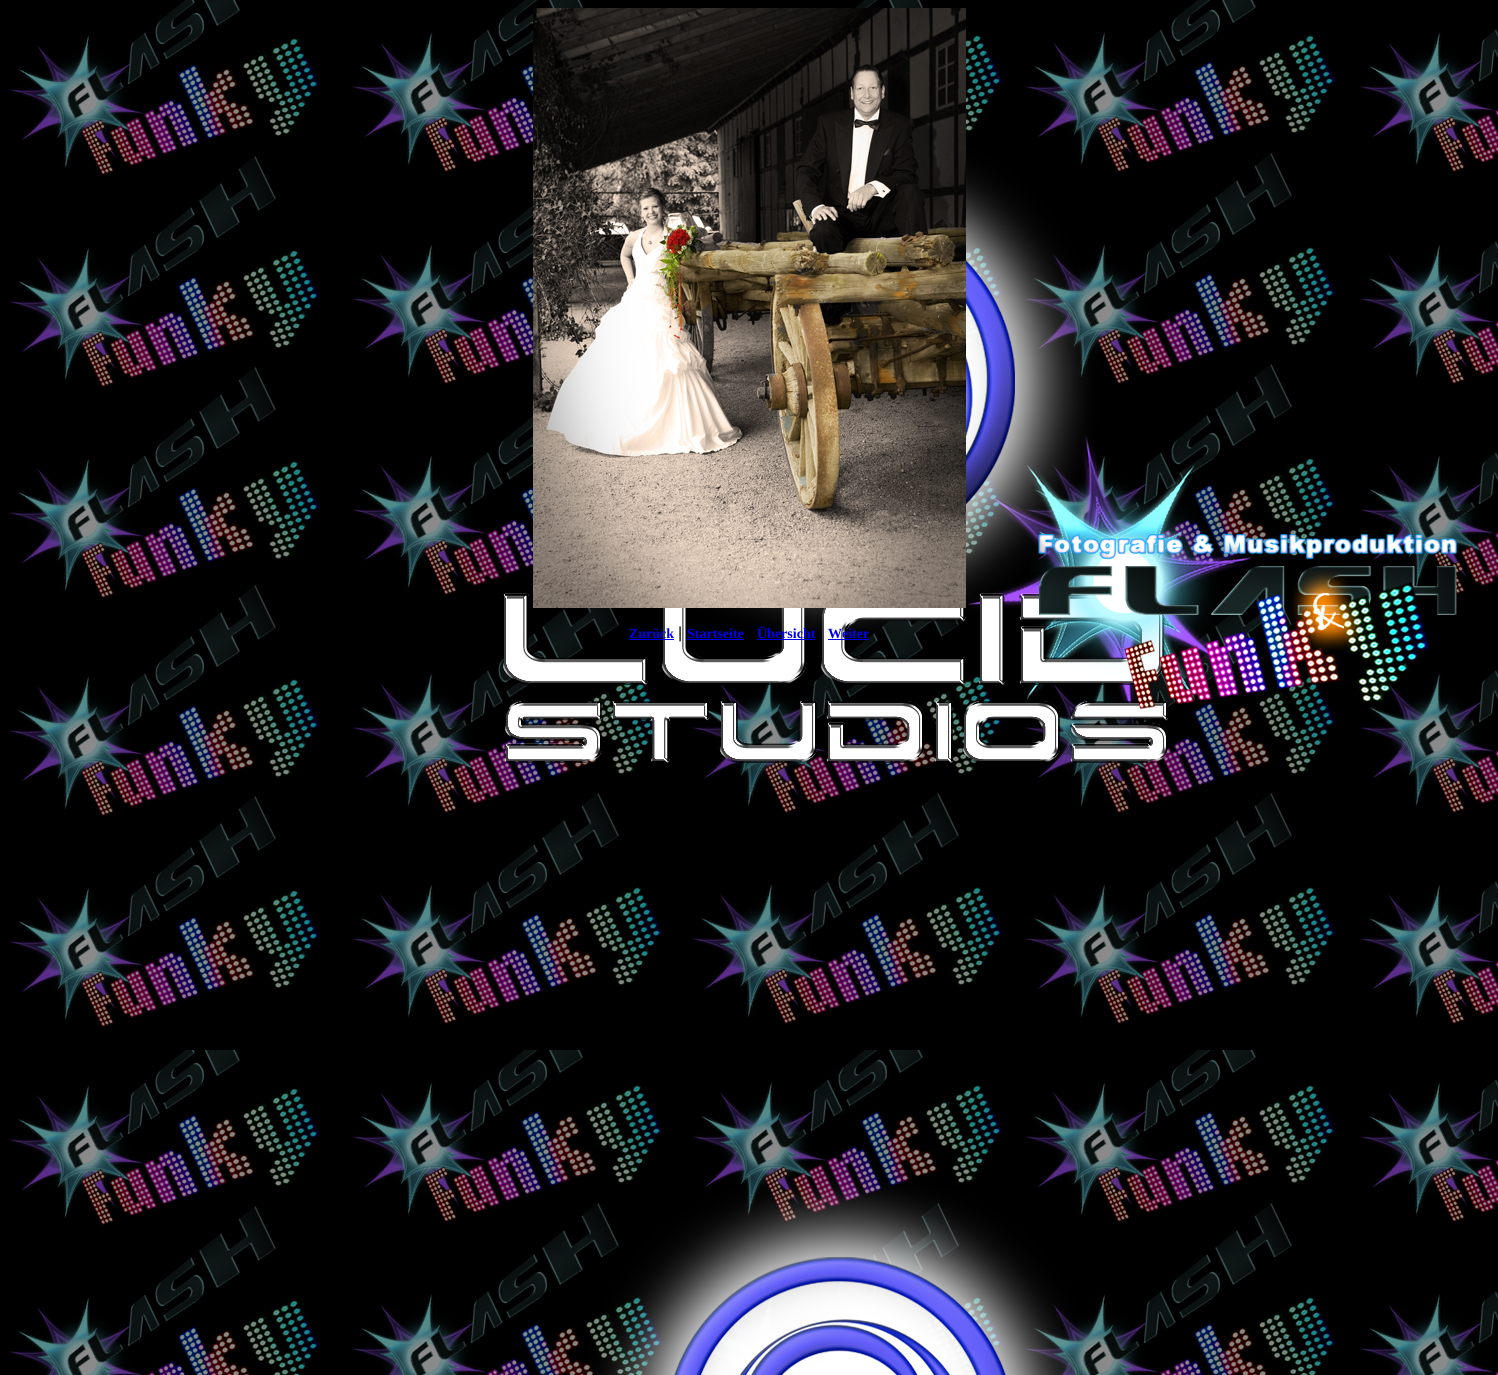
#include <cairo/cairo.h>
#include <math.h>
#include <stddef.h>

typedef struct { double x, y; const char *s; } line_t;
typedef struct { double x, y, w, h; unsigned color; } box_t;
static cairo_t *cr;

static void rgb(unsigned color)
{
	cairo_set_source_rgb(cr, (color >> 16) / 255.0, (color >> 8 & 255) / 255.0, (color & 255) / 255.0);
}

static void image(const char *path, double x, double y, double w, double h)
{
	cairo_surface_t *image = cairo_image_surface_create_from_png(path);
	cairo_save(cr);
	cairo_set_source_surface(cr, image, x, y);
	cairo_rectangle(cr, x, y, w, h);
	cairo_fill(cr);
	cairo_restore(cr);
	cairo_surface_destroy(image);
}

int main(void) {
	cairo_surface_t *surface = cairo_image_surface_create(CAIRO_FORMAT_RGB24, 1498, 1375);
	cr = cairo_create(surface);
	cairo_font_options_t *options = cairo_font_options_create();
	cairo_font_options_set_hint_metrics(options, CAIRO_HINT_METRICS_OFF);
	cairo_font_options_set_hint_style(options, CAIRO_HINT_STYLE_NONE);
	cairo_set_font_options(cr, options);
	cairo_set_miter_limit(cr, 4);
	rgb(0xffffff);
	cairo_paint(cr);
	image("img/1.png", 0, 0, 1498, 1375);
	image("img/2.png", 533, 8, 433, 600);
	{
		static const box_t items[] = {
			{629, 639, 45, 1, 0x0000f0},
			{687, 639, 57, 1, 0x0000f0},
			{757, 639, 58, 1, 0x0000f0},
			{828, 639, 41, 1, 0x0000f0},
		};
		for (size_t i = 0; i < sizeof items / sizeof *items; i++) {
			rgb(items[i].color);
			cairo_rectangle(cr, items[i].x, items[i].y, items[i].w, items[i].h);
			cairo_fill(cr);
		}
	}
	cairo_select_font_face(cr, "Liberation Serif", CAIRO_FONT_SLANT_NORMAL, CAIRO_FONT_WEIGHT_BOLD);
	cairo_set_font_size(cr, 14);
	cairo_move_to(cr, 629, 638);
	cairo_show_text(cr, "Zurück");
	cairo_select_font_face(cr, "Liberation Sans", CAIRO_FONT_SLANT_NORMAL, CAIRO_FONT_WEIGHT_NORMAL);
	cairo_set_font_size(cr, 16);
	rgb(0x000000);
	cairo_move_to(cr, 678, 638);
	cairo_show_text(cr, "|");
	cairo_select_font_face(cr, "Liberation Serif", CAIRO_FONT_SLANT_NORMAL, CAIRO_FONT_WEIGHT_BOLD);
	cairo_set_font_size(cr, 14);
	rgb(0x0000f0);
	{
		static const line_t items[] = {
			{687, 638, "Startseite"},
			{757, 638, "Übersicht"},
			{828, 638, "Weiter"},
		};
		for (size_t i = 0; i < sizeof items / sizeof *items; i++) {
			cairo_move_to(cr, items[i].x, items[i].y);
			cairo_show_text(cr, items[i].s);
		}
	}
	cairo_surface_write_to_png(surface, "page.png");
	cairo_font_options_destroy(options);
	cairo_destroy(cr);
	cairo_surface_destroy(surface);
	return 0;
}
